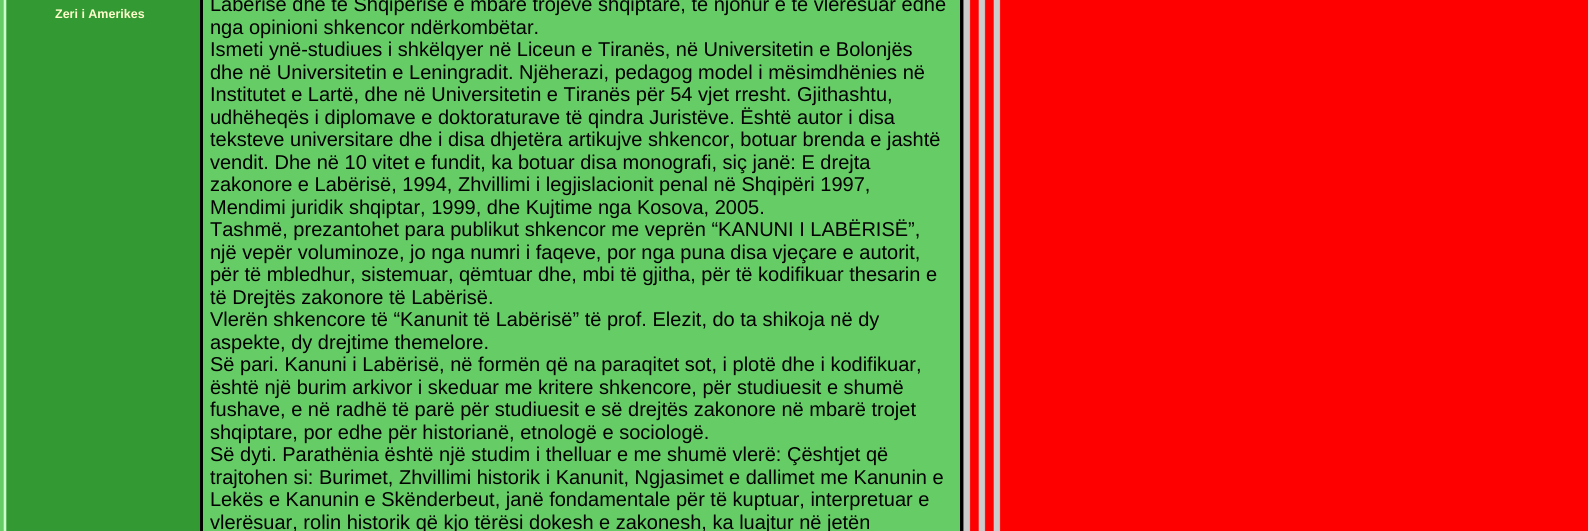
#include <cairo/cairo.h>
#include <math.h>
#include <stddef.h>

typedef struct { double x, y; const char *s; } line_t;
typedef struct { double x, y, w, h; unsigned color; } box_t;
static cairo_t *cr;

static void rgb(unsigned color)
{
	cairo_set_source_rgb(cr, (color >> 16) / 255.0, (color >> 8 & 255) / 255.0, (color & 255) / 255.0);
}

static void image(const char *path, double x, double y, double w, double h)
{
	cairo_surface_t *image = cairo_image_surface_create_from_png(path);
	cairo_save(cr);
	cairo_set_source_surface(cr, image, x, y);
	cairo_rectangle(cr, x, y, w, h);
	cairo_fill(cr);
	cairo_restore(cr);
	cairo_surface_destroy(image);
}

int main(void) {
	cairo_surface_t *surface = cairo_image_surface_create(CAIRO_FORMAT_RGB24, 1588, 531);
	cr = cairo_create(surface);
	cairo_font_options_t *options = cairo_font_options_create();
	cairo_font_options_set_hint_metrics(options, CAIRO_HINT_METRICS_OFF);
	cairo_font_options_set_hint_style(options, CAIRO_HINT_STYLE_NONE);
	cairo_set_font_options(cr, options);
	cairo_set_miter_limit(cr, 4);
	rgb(0xff0000);
	cairo_paint(cr);
	image("img/1.png", 963, 0, 38, 531);
	image("img/2.png", 0, 0, 200, 531);
	{
		static const box_t items[] = {
			{200, 0, 3, 531, 0x000000},
			{203, 0, 757, 531, 0x66cc66},
			{960, 0, 3, 531, 0x000000},
		};
		for (size_t i = 0; i < sizeof items / sizeof *items; i++) {
			rgb(items[i].color);
			cairo_rectangle(cr, items[i].x, items[i].y, items[i].w, items[i].h);
			cairo_fill(cr);
		}
	}
	cairo_select_font_face(cr, "Liberation Sans", CAIRO_FONT_SLANT_NORMAL, CAIRO_FONT_WEIGHT_BOLD);
	cairo_set_font_size(cr, 12.5);
	rgb(0xffffcc);
	cairo_move_to(cr, 55, 18);
	cairo_show_text(cr, "Zeri i Amerikes");
	cairo_select_font_face(cr, "Liberation Sans", CAIRO_FONT_SLANT_NORMAL, CAIRO_FONT_WEIGHT_NORMAL);
	cairo_set_font_size(cr, 20);
	rgb(0x000000);
	{
		static const line_t items[] = {
			{210, 11, "Labërisë dhe të Shqipërisë e mbarë trojeve shqiptare, të njohur e të vlerësuar edhe"},
			{210, 34, "nga opinioni shkencor ndërkombëtar."},
			{210, 56, "Ismeti ynë-studiues i shkëlqyer në Liceun e Tiranës, në Universitetin e Bolonjës"},
			{210, 79, "dhe në Universitetin e Leningradit. Njëherazi, pedagog model i mësimdhënies në"},
			{210, 101, "Institutet e Lartë, dhe në Universitetin e Tiranës për 54 vjet rresht. Gjithashtu,"},
			{210, 124, "udhëheqës i diplomave e doktoraturave të qindra Juristëve. Është autor i disa"},
			{210, 146, "teksteve universitare dhe i disa dhjetëra artikujve shkencor, botuar brenda e jashtë"},
			{210, 169, "vendit. Dhe në 10 vitet e fundit, ka botuar disa monografi, siç janë: E drejta"},
			{210, 191, "zakonore e Labërisë, 1994, Zhvillimi i legjislacionit penal në Shqipëri 1997,"},
			{210, 214, "Mendimi juridik shqiptar, 1999, dhe Kujtime nga Kosova, 2005."},
			{210, 236, "Tashmë, prezantohet para publikut shkencor me veprën “KANUNI I LABËRISË”,"},
			{210, 259, "një vepër voluminoze, jo nga numri i faqeve, por nga puna disa vjeçare e autorit,"},
			{210, 281, "për të mbledhur, sistemuar, qëmtuar dhe, mbi të gjitha, për të kodifikuar thesarin e"},
			{210, 304, "të Drejtës zakonore të Labërisë."},
			{210, 326, "Vlerën shkencore të “Kanunit të Labërisë” të prof. Elezit, do ta shikoja në dy"},
			{210, 349, "aspekte, dy drejtime themelore."},
			{210, 371, "Së pari. Kanuni i Labërisë, në formën që na paraqitet sot, i plotë dhe i kodifikuar,"},
			{210, 394, "është një burim arkivor i skeduar me kritere shkencore, për studiuesit e shumë"},
			{210, 416, "fushave, e në radhë të parë për studiuesit e së drejtës zakonore në mbarë trojet"},
			{210, 439, "shqiptare, por edhe për historianë, etnologë e sociologë."},
			{210, 461, "Së dyti. Parathënia është një studim i thelluar e me shumë vlerë: Çështjet që"},
			{210, 484, "trajtohen si: Burimet, Zhvillimi historik i Kanunit, Ngjasimet e dallimet me Kanunin e"},
			{210, 506, "Lekës e Kanunin e Skënderbeut, janë fondamentale për të kuptuar, interpretuar e"},
			{210, 529, "vlerësuar, rolin historik që kjo tërësi dokesh e zakonesh, ka luajtur në jetën"},
		};
		for (size_t i = 0; i < sizeof items / sizeof *items; i++) {
			cairo_move_to(cr, items[i].x, items[i].y);
			cairo_show_text(cr, items[i].s);
		}
	}
	cairo_surface_write_to_png(surface, "page.png");
	cairo_font_options_destroy(options);
	cairo_destroy(cr);
	cairo_surface_destroy(surface);
	return 0;
}
